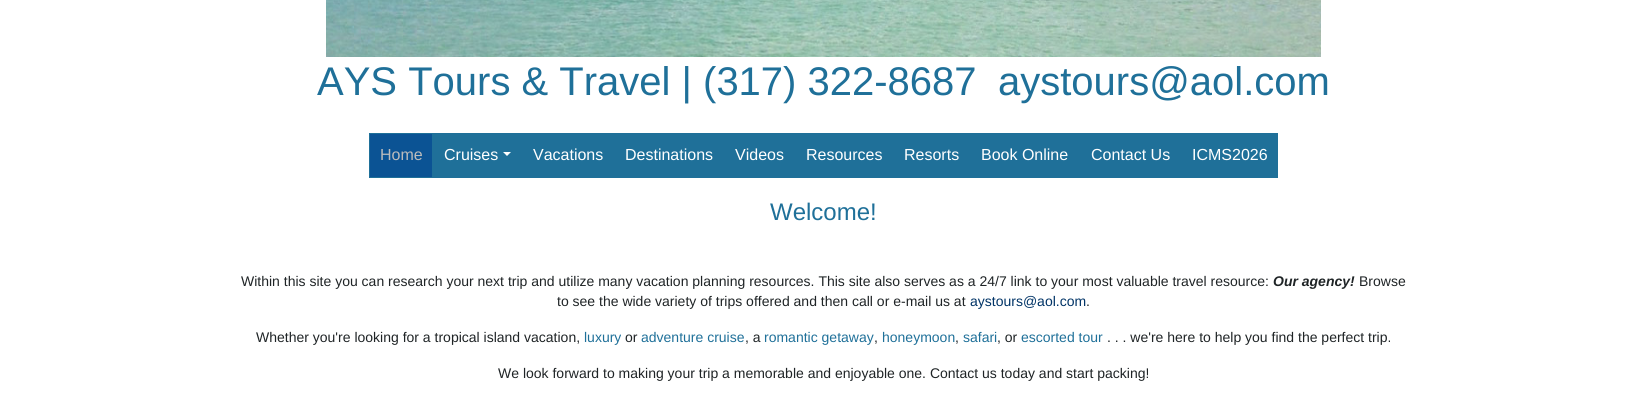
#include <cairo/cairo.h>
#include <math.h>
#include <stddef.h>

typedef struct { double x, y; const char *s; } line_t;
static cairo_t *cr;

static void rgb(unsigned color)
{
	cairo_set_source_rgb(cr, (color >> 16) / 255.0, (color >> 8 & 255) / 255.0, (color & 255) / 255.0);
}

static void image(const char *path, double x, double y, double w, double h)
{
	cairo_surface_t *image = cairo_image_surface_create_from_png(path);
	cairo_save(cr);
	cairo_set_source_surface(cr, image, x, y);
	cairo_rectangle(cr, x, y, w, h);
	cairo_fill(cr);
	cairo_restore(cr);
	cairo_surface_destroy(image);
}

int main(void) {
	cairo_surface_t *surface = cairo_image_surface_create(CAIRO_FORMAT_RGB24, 1647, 413);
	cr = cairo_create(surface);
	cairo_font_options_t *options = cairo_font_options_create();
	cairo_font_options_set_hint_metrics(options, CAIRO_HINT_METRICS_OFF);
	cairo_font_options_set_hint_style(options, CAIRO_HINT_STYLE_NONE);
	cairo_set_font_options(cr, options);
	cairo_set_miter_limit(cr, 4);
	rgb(0xffffff);
	cairo_paint(cr);
	image("img/1.png", 326, 0, 995, 57);
	rgb(0x0b5394);
	cairo_rectangle(cr, 369.5, 133.5, 63, 44);
	cairo_fill_preserve(cr);
	rgb(0x1f7099);
	cairo_set_line_width(cr, 1);
	cairo_stroke(cr);
	cairo_rectangle(cr, 433, 133, 845, 45);
	cairo_fill(cr);
	rgb(0xffffff);
	cairo_new_path(cr);
	cairo_move_to(cr, 503, 152);
	cairo_line_to(cr, 511, 152);
	cairo_line_to(cr, 507, 156);
	cairo_close_path(cr);
	cairo_fill(cr);
	cairo_select_font_face(cr, "Liberation Sans", CAIRO_FONT_SLANT_NORMAL, CAIRO_FONT_WEIGHT_NORMAL);
	cairo_set_font_size(cr, 40);
	rgb(0x1f7099);
	cairo_move_to(cr, 317, 95);
	cairo_show_text(cr, "AYS Tours & Travel | (317) 322-8687");
	cairo_move_to(cr, 998, 95);
	cairo_show_text(cr, "aystours@aol.com");
	cairo_set_font_size(cr, 16);
	rgb(0xbcbcbc);
	cairo_move_to(cr, 380, 160);
	cairo_show_text(cr, "Home");
	rgb(0xffffff);
	{
		static const line_t items[] = {
			{444, 160, "Cruises"},
			{533, 160, "Vacations"},
			{625, 160, "Destinations"},
			{735, 160, "Videos"},
			{806, 160, "Resources"},
			{904, 160, "Resorts"},
			{981, 160, "Book Online"},
			{1091, 160, "Contact Us"},
			{1192, 160, "ICMS2026"},
		};
		for (size_t i = 0; i < sizeof items / sizeof *items; i++) {
			cairo_move_to(cr, items[i].x, items[i].y);
			cairo_show_text(cr, items[i].s);
		}
	}
	cairo_set_font_size(cr, 24);
	rgb(0x1f7099);
	cairo_move_to(cr, 770, 220);
	cairo_show_text(cr, "Welcome!");
	cairo_set_font_size(cr, 14);
	rgb(0x1f2426);
	cairo_move_to(cr, 241, 286);
	cairo_show_text(cr, "Within this site you can research your next trip and utilize many vacation planning resources. This site also serves as a 24/7 link to your most valuable travel resource:");
	cairo_select_font_face(cr, "Liberation Sans", CAIRO_FONT_SLANT_ITALIC, CAIRO_FONT_WEIGHT_BOLD);
	cairo_move_to(cr, 1273, 286);
	cairo_show_text(cr, "Our agency!");
	cairo_select_font_face(cr, "Liberation Sans", CAIRO_FONT_SLANT_NORMAL, CAIRO_FONT_WEIGHT_NORMAL);
	cairo_move_to(cr, 1359, 286);
	cairo_show_text(cr, "Browse");
	cairo_move_to(cr, 557, 306);
	cairo_show_text(cr, "to see the wide variety of trips offered and then call or e-mail us at");
	rgb(0x003366);
	cairo_move_to(cr, 970, 306);
	cairo_show_text(cr, "aystours@aol.com");
	rgb(0x1f2426);
	cairo_move_to(cr, 1086, 306);
	cairo_show_text(cr, ".");
	cairo_move_to(cr, 256, 342);
	cairo_show_text(cr, "Whether you're looking for a tropical island vacation,");
	rgb(0x1f7099);
	cairo_move_to(cr, 584, 342);
	cairo_show_text(cr, "luxury");
	rgb(0x1f2426);
	cairo_move_to(cr, 625, 342);
	cairo_show_text(cr, "or");
	rgb(0x1f7099);
	cairo_move_to(cr, 641, 342);
	cairo_show_text(cr, "adventure cruise");
	rgb(0x1f2426);
	cairo_move_to(cr, 745, 342);
	cairo_show_text(cr, ", a");
	rgb(0x1f7099);
	cairo_move_to(cr, 764, 342);
	cairo_show_text(cr, "romantic getaway");
	rgb(0x1f2426);
	cairo_move_to(cr, 874, 342);
	cairo_show_text(cr, ",");
	rgb(0x1f7099);
	cairo_move_to(cr, 882, 342);
	cairo_show_text(cr, "honeymoon");
	rgb(0x1f2426);
	cairo_move_to(cr, 955, 342);
	cairo_show_text(cr, ",");
	rgb(0x1f7099);
	cairo_move_to(cr, 963, 342);
	cairo_show_text(cr, "safari");
	rgb(0x1f2426);
	cairo_move_to(cr, 997, 342);
	cairo_show_text(cr, ", or");
	rgb(0x1f7099);
	cairo_move_to(cr, 1021, 342);
	cairo_show_text(cr, "escorted tour");
	rgb(0x1f2426);
	cairo_move_to(cr, 1107, 342);
	cairo_show_text(cr, ". . . we're here to help you find the perfect trip.");
	cairo_move_to(cr, 498, 378);
	cairo_show_text(cr, "We look forward to making your trip a memorable and enjoyable one. Contact us today and start packing!");
	cairo_surface_write_to_png(surface, "page.png");
	cairo_font_options_destroy(options);
	cairo_destroy(cr);
	cairo_surface_destroy(surface);
	return 0;
}
